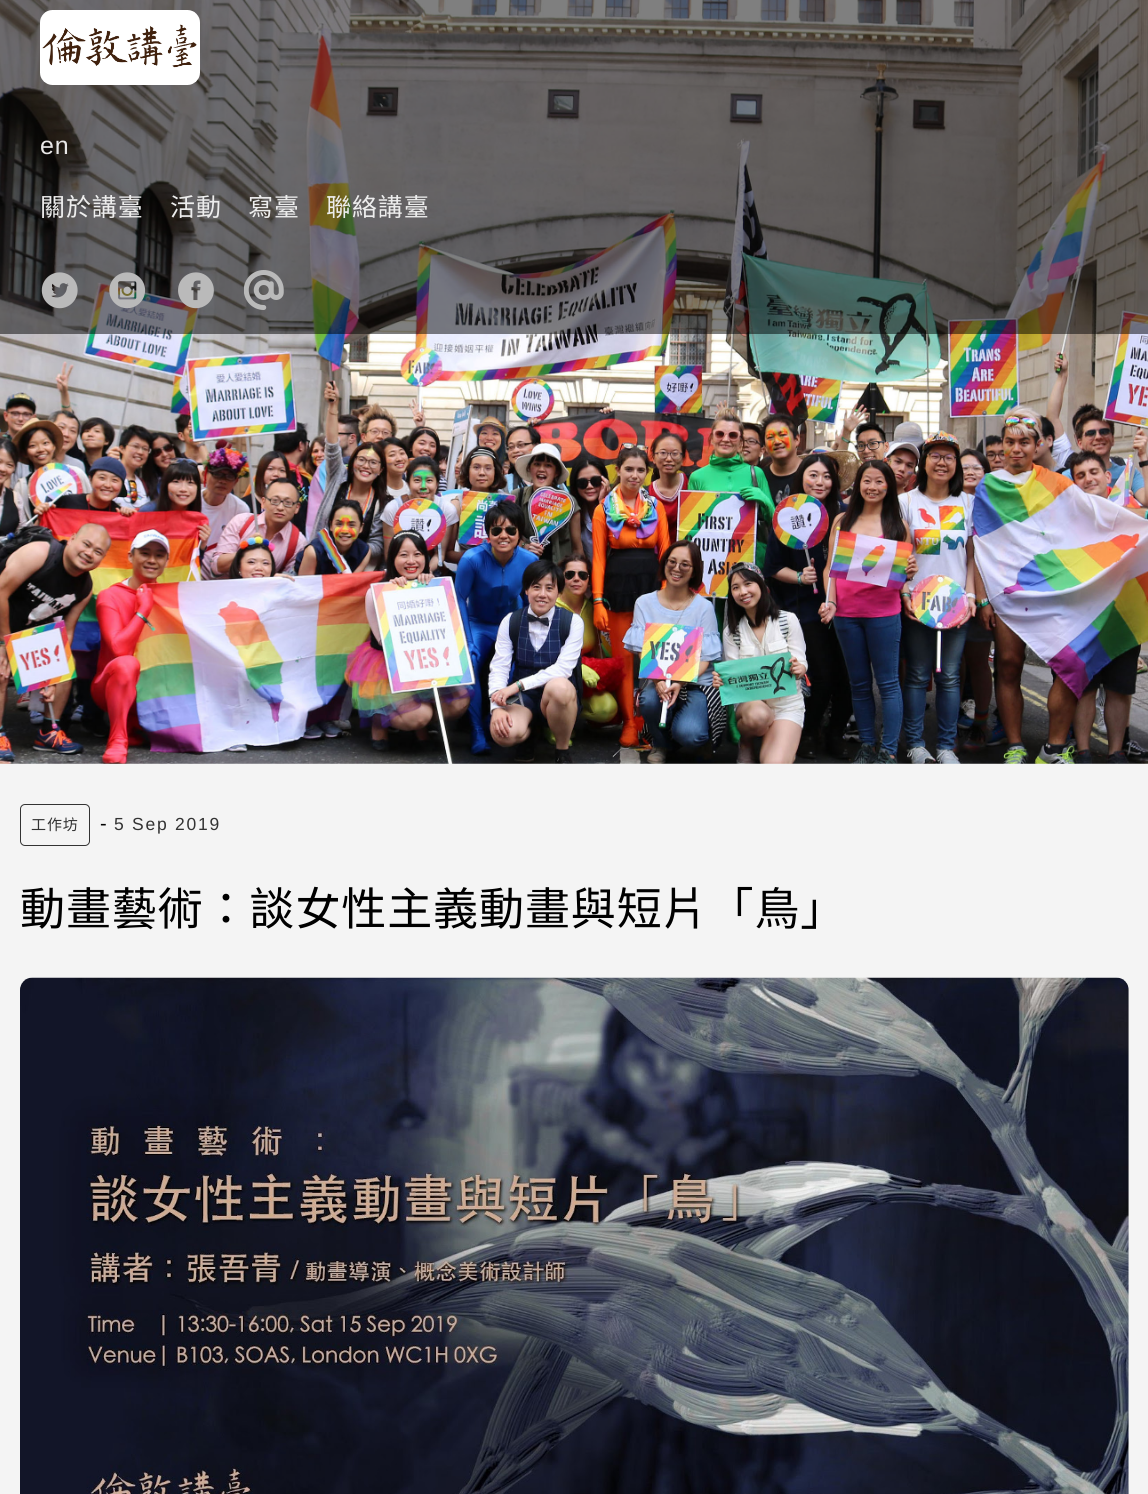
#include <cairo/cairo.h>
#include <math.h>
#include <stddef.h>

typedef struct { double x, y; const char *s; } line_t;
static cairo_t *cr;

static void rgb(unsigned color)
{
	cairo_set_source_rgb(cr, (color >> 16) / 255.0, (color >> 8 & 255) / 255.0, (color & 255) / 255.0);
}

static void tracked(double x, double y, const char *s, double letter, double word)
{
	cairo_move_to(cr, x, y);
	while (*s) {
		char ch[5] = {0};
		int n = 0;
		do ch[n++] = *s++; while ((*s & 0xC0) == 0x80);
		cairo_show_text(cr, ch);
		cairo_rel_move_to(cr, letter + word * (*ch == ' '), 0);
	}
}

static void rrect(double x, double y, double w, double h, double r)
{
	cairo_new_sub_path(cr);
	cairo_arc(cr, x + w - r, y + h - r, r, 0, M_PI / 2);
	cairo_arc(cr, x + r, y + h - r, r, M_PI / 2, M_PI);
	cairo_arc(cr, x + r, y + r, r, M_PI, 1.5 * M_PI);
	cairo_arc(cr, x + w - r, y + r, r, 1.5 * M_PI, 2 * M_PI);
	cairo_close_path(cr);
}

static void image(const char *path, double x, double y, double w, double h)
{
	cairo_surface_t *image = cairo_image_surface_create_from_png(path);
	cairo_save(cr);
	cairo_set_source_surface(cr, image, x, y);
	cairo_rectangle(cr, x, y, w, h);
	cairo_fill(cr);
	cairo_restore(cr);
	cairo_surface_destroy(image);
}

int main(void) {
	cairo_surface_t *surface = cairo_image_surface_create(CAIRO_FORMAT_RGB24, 1148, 1494);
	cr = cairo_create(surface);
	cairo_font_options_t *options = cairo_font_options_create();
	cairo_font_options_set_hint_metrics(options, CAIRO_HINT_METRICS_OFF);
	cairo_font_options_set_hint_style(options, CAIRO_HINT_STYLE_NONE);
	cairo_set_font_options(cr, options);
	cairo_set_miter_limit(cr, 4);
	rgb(0xf4f4f4);
	cairo_paint(cr);
	image("img/1.png", 0, 0, 1148, 764);
	cairo_set_source_rgba(cr, 0, 0, 0, 0.5);
	cairo_rectangle(cr, 0, 0, 1148, 334);
	cairo_fill(cr);
	image("img/2.png", 40, 10, 160, 75);
	image("img/3.png", 41, 272, 37, 37);
	image("img/4.png", 109, 272, 37, 37);
	image("img/5.png", 178, 272, 36, 37);
	image("img/6.png", 244, 270, 40, 40);
	rrect(20.5, 804.5, 69, 41, 4.5);
	rgb(0x333333);
	cairo_set_line_width(cr, 1);
	cairo_stroke(cr);
	image("img/7.png", 20, 977, 1109, 517);
	cairo_select_font_face(cr, "Liberation Sans", CAIRO_FONT_SLANT_NORMAL, CAIRO_FONT_WEIGHT_NORMAL);
	cairo_set_font_size(cr, 25);
	rgb(0xe8e7e7);
	tracked(40, 154, "en", 0.9, 0);
	cairo_select_font_face(cr, "Noto Sans CJK TC", CAIRO_FONT_SLANT_NORMAL, CAIRO_FONT_WEIGHT_NORMAL);
	rgb(0xededed);
	{
		static const line_t items[] = {
			{40, 216, "關於講臺"},
			{170, 216, "活動"},
			{248, 216, "寫臺"},
			{326, 216, "聯絡講臺"},
		};
		for (size_t i = 0; i < sizeof items / sizeof *items; i++) {
			tracked(items[i].x, items[i].y, items[i].s, 0.9, 0);
		}
	}
	cairo_set_font_size(cr, 15);
	rgb(0x333333);
	tracked(31, 830, "工作坊", 0.9, 0);
	cairo_select_font_face(cr, "Liberation Sans", CAIRO_FONT_SLANT_NORMAL, CAIRO_FONT_WEIGHT_NORMAL);
	cairo_set_font_size(cr, 20);
	rgb(0x000000);
	tracked(100, 830, "-", 0.9, 0);
	cairo_set_font_size(cr, 17.5);
	rgb(0x333333);
	tracked(114, 830, "5 Sep 2019", 1.75, 0);
	cairo_select_font_face(cr, "Noto Sans CJK TC", CAIRO_FONT_SLANT_NORMAL, CAIRO_FONT_WEIGHT_NORMAL);
	cairo_set_font_size(cr, 45);
	rgb(0x000000);
	tracked(20, 925, "動畫藝術：談女性主義動畫與短片「鳥」", 0.9, 0);
	cairo_surface_write_to_png(surface, "page.png");
	cairo_font_options_destroy(options);
	cairo_destroy(cr);
	cairo_surface_destroy(surface);
	return 0;
}
